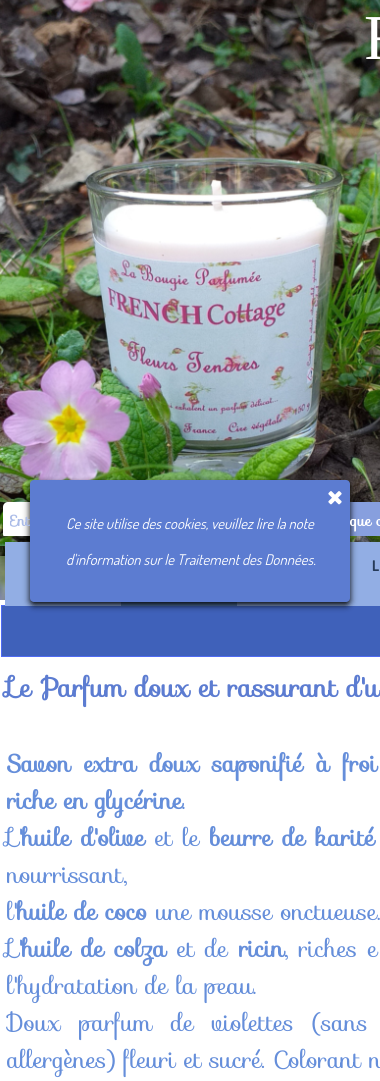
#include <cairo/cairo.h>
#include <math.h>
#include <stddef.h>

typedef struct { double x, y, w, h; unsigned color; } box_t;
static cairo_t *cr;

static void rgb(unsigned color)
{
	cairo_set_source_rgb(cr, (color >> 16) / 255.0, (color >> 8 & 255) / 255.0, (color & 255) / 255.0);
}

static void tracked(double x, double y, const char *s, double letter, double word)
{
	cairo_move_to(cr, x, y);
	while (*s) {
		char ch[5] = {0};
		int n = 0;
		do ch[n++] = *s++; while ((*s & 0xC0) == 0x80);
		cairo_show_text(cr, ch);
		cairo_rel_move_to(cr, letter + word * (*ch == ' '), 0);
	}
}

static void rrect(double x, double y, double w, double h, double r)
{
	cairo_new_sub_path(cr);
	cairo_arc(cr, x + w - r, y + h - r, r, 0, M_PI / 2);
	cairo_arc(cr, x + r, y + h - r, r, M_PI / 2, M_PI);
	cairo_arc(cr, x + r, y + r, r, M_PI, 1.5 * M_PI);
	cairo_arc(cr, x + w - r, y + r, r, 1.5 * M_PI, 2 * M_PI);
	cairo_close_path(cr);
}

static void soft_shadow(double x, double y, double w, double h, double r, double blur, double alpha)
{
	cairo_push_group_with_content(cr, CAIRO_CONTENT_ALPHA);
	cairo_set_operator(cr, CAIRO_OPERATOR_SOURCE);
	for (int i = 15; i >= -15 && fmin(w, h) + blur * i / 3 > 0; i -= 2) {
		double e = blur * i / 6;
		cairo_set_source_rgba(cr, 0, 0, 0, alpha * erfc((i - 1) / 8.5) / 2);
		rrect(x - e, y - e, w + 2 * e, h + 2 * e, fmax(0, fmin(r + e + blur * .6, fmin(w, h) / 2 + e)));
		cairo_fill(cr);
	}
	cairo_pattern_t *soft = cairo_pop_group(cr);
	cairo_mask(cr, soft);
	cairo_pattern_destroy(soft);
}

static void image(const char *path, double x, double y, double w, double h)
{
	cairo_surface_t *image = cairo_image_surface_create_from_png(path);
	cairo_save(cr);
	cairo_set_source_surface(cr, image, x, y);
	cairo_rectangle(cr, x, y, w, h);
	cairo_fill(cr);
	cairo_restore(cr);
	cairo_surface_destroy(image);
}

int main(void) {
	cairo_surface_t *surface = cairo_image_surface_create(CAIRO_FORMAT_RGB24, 380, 1081);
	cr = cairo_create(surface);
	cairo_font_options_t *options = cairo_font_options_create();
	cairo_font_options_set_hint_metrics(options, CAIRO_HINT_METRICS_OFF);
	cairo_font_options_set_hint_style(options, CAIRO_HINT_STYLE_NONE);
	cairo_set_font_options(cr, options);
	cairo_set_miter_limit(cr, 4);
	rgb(0xffffff);
	cairo_paint(cr);
	image("img/1.png", 0, 0, 380, 546);
	cairo_save(cr);
	cairo_rectangle(cr, 3, 502, 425, 34);
	cairo_clip(cr);
	rgb(0xffffff);
	rrect(3, 502, 221, 37, 5);
	cairo_fill(cr);
	rgb(0x879fde);
	rrect(223, 502, 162, 37, 5);
	cairo_fill(cr);
	cairo_restore(cr);
	rgb(0x3f61ba);
	cairo_rectangle(cr, 1.5, 605.5, 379, 51);
	cairo_fill_preserve(cr);
	rgb(0x4f6bf2);
	cairo_set_line_width(cr, 1);
	cairo_stroke(cr);
	{
		static const box_t items[] = {
			{5, 542, 116, 64, 0x92aee4},
			{237, 542, 143, 64, 0x92aee4},
			{121, 602, 116, 4, 0x567eb6},
		};
		for (size_t i = 0; i < sizeof items / sizeof *items; i++) {
			rgb(items[i].color);
			cairo_rectangle(cr, items[i].x, items[i].y, items[i].w, items[i].h);
			cairo_fill(cr);
		}
	}
	image("img/2.png", 0, 546, 5, 54);
	rgb(0x000000);
	soft_shadow(30, 483, 320, 122, 4, 3.5, 1);
	cairo_select_font_face(cr, "Liberation Serif", CAIRO_FONT_SLANT_NORMAL, CAIRO_FONT_WEIGHT_NORMAL);
	cairo_set_font_size(cr, 64);
	rgb(0xffffff);
	cairo_move_to(cr, 364, 59);
	cairo_show_text(cr, "F");
	cairo_save(cr);
	cairo_rectangle(cr, 10, 509, 207, 23);
	cairo_clip(cr);
	cairo_select_font_face(cr, "Sofia", CAIRO_FONT_SLANT_NORMAL, CAIRO_FONT_WEIGHT_BOLD);
	cairo_set_font_size(cr, 14.7);
	rgb(0xabbce8);
	cairo_move_to(cr, 10, 526);
	cairo_show_text(cr, "Ent");
	cairo_restore(cr);
	cairo_select_font_face(cr, "Sofia", CAIRO_FONT_SLANT_NORMAL, CAIRO_FONT_WEIGHT_BOLD);
	cairo_set_font_size(cr, 14.7);
	cairo_move_to(cr, 350, 526);
	cairo_show_text(cr, "que c");
	cairo_select_font_face(cr, "Dosis", CAIRO_FONT_SLANT_NORMAL, CAIRO_FONT_WEIGHT_BOLD);
	rgb(0x253a58);
	cairo_move_to(cr, 372, 571);
	cairo_show_text(cr, "L");
	cairo_select_font_face(cr, "Sofia", CAIRO_FONT_SLANT_NORMAL, CAIRO_FONT_WEIGHT_BOLD);
	cairo_set_font_size(cr, 26.7);
	rgb(0x5c7cd1);
	cairo_move_to(cr, 7, 697);
	cairo_show_text(cr, "Le Parfum doux et rassurant d'u");
	cairo_set_font_size(cr, 24);
	rgb(0x658eda);
	tracked(7, 772, "Savon extra doux saponifié à froi", 0, 5);
	cairo_move_to(cr, 7, 809);
	cairo_show_text(cr, "riche en glycérine");
	cairo_select_font_face(cr, "Sofia", CAIRO_FONT_SLANT_NORMAL, CAIRO_FONT_WEIGHT_NORMAL);
	cairo_move_to(cr, 182, 809);
	cairo_show_text(cr, ".");
	cairo_move_to(cr, 7, 846);
	cairo_show_text(cr, "L'");
	cairo_select_font_face(cr, "Sofia", CAIRO_FONT_SLANT_NORMAL, CAIRO_FONT_WEIGHT_BOLD);
	tracked(22, 846, "huile d'olive", 0, 2);
	cairo_select_font_face(cr, "Sofia", CAIRO_FONT_SLANT_NORMAL, CAIRO_FONT_WEIGHT_NORMAL);
	tracked(155, 846, "et le", 0, 2);
	cairo_select_font_face(cr, "Sofia", CAIRO_FONT_SLANT_NORMAL, CAIRO_FONT_WEIGHT_BOLD);
	tracked(210, 846, "beurre de karité", 0, 2);
	cairo_select_font_face(cr, "Sofia", CAIRO_FONT_SLANT_NORMAL, CAIRO_FONT_WEIGHT_NORMAL);
	cairo_move_to(cr, 7, 883);
	cairo_show_text(cr, "nourrissant,");
	cairo_move_to(cr, 7, 920);
	cairo_show_text(cr, "l'");
	cairo_select_font_face(cr, "Sofia", CAIRO_FONT_SLANT_NORMAL, CAIRO_FONT_WEIGHT_BOLD);
	cairo_move_to(cr, 17, 920);
	cairo_show_text(cr, "huile de coco");
	cairo_select_font_face(cr, "Sofia", CAIRO_FONT_SLANT_NORMAL, CAIRO_FONT_WEIGHT_NORMAL);
	cairo_move_to(cr, 156, 920);
	cairo_show_text(cr, "une mousse onctueuse.");
	cairo_move_to(cr, 7, 957);
	cairo_show_text(cr, "L'");
	cairo_select_font_face(cr, "Sofia", CAIRO_FONT_SLANT_NORMAL, CAIRO_FONT_WEIGHT_BOLD);
	tracked(22, 957, "huile de colza", 0, 2);
	cairo_select_font_face(cr, "Sofia", CAIRO_FONT_SLANT_NORMAL, CAIRO_FONT_WEIGHT_NORMAL);
	tracked(177, 957, "et de", 0, 2);
	cairo_select_font_face(cr, "Sofia", CAIRO_FONT_SLANT_NORMAL, CAIRO_FONT_WEIGHT_BOLD);
	cairo_move_to(cr, 239, 957);
	cairo_show_text(cr, "ricin");
	cairo_select_font_face(cr, "Sofia", CAIRO_FONT_SLANT_NORMAL, CAIRO_FONT_WEIGHT_NORMAL);
	tracked(284, 957, ", riches e", 0, 2);
	cairo_move_to(cr, 7, 994);
	cairo_show_text(cr, "l'hydratation de la peau.");
	tracked(7, 1031, "Doux parfum de violettes (sans", 0, 10);
	cairo_move_to(cr, 7, 1068);
	cairo_show_text(cr, "allergènes) fleuri et sucré. Colorant n");
	rgb(0x5c7cd1);
	rrect(30, 480, 320, 122, 4);
	cairo_fill(cr);
	image("img/3.png", 328, 491, 14, 14);
	cairo_select_font_face(cr, "Dosis", CAIRO_FONT_SLANT_ITALIC, CAIRO_FONT_WEIGHT_NORMAL);
	cairo_set_font_size(cr, 14.7);
	rgb(0xffffff);
	cairo_move_to(cr, 66, 529);
	cairo_show_text(cr, "Ce site utilise des cookies, veuillez lire la note");
	cairo_move_to(cr, 66, 565);
	cairo_show_text(cr, "d'information sur le Traitement des Données.");
	cairo_surface_write_to_png(surface, "page.png");
	cairo_font_options_destroy(options);
	cairo_destroy(cr);
	cairo_surface_destroy(surface);
	return 0;
}
